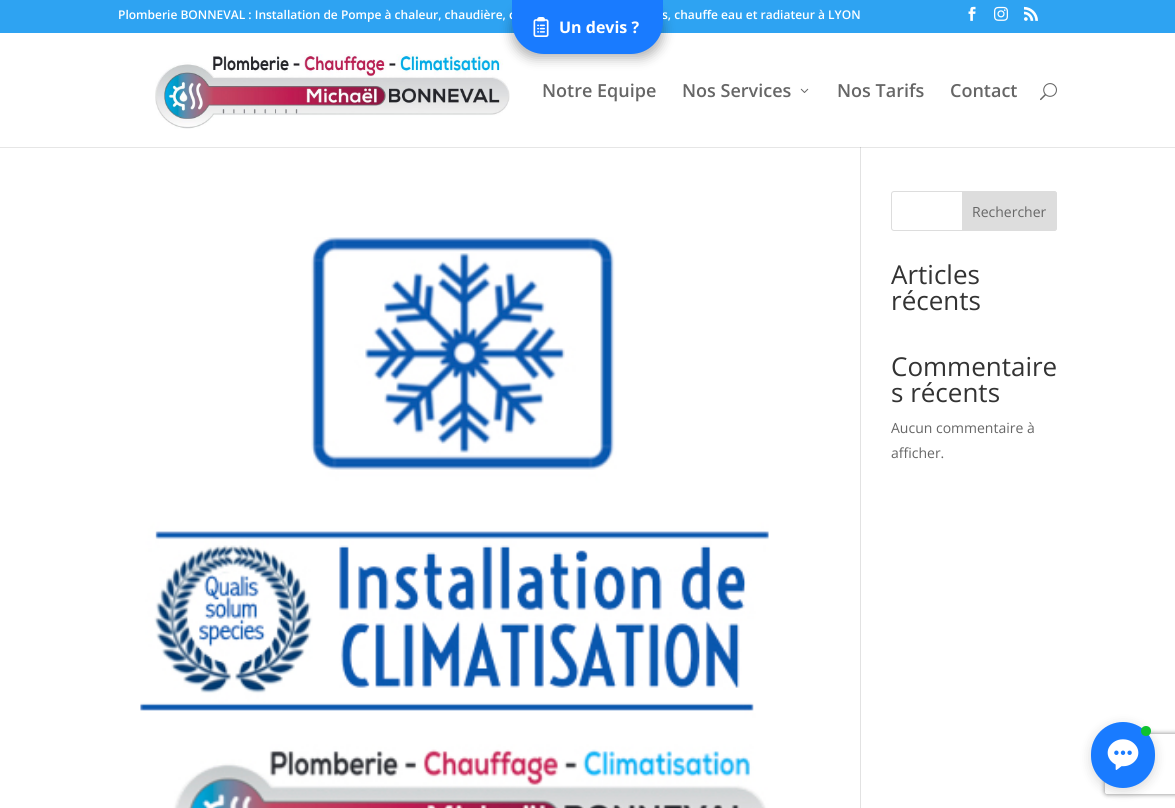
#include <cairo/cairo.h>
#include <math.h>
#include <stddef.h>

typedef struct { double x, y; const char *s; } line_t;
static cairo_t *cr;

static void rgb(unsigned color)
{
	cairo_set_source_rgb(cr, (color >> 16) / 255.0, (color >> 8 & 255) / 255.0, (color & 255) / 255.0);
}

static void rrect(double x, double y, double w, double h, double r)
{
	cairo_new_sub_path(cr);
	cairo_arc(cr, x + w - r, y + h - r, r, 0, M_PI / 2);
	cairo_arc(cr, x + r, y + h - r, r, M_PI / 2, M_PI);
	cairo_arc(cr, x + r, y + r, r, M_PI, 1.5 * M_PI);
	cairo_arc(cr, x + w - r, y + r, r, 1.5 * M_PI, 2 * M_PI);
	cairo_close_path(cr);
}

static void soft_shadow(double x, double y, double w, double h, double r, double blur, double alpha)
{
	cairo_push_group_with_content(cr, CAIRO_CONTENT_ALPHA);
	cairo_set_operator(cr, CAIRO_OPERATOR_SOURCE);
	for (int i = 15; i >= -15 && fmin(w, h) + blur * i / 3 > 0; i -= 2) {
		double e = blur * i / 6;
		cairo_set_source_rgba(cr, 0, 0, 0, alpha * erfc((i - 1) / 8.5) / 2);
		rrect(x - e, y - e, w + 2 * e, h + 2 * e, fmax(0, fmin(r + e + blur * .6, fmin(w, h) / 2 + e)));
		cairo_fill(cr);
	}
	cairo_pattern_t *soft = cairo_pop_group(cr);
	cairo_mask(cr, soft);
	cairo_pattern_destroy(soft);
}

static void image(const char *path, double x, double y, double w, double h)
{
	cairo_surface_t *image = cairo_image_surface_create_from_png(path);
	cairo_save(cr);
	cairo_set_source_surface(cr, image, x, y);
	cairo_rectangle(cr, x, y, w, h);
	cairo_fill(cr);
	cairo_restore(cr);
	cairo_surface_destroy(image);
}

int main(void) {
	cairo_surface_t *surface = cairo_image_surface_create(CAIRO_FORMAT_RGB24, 1175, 808);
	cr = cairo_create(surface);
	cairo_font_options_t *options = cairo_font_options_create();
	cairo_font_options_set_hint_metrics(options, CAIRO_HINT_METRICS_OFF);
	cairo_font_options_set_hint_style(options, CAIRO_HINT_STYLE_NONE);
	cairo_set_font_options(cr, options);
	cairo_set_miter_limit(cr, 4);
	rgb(0xffffff);
	cairo_paint(cr);
	rgb(0xe6e6e6);
	cairo_rectangle(cr, 0, 147, 1175, 1);
	cairo_fill(cr);
	rgb(0x2ea3f2);
	cairo_rectangle(cr, 0, 0, 1175, 33);
	cairo_fill(cr);
	image("img/1.png", 968, 6, 8, 15);
	image("img/2.png", 994, 6, 14, 15);
	image("img/3.png", 1024, 6, 14, 15);
	image("img/4.png", 155, 54, 355, 75);
	image("img/5.png", 800, 88, 9, 5);
	image("img/6.png", 1040, 83, 17, 18);
	rgb(0xe2e2e2);
	cairo_rectangle(cr, 860, 148, 1, 660);
	cairo_fill(cr);
	rgb(0xcbcbcb);
	cairo_rectangle(cr, 860, 147, 1, 1);
	cairo_fill(cr);
	image("img/7.png", 140, 237, 629, 571);
	rrect(891.5, 191.5, 165, 39, 2.5);
	rgb(0xdddddd);
	cairo_set_line_width(cr, 1);
	cairo_stroke(cr);
	cairo_new_path(cr);
	cairo_move_to(cr, 962.5, 191.5);
	cairo_line_to(cr, 1054, 191.5);
	cairo_curve_to(cr, 1055.5, 191.5, 1056.5, 192.5, 1056.5, 194);
	cairo_line_to(cr, 1056.5, 228);
	cairo_curve_to(cr, 1056.5, 229.5, 1055.5, 230.5, 1054, 230.5);
	cairo_line_to(cr, 962.5, 230.5);
	cairo_close_path(cr);
	cairo_fill_preserve(cr);
	cairo_stroke(cr);
	rgb(0x000000);
	soft_shadow(512, 4, 151, 54, 32, 6, 0.3);
	soft_shadow(1091, 725, 64, 66, 32, 6, 0.15);
	cairo_save(cr);
	cairo_set_fill_rule(cr, CAIRO_FILL_RULE_EVEN_ODD);
	cairo_new_path(cr);
	cairo_move_to(cr, 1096, 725);
	cairo_line_to(cr, 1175, 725);
	cairo_line_to(cr, 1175, 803);
	cairo_line_to(cr, 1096, 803);
	cairo_close_path(cr);
	cairo_move_to(cr, 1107, 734);
	cairo_line_to(cr, 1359, 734);
	cairo_curve_to(cr, 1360, 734, 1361, 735, 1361, 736);
	cairo_line_to(cr, 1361, 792);
	cairo_curve_to(cr, 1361, 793, 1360, 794, 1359, 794);
	cairo_line_to(cr, 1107, 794);
	cairo_curve_to(cr, 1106, 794, 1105, 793, 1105, 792);
	cairo_line_to(cr, 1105, 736);
	cairo_curve_to(cr, 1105, 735, 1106, 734, 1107, 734);
	cairo_close_path(cr);
	cairo_clip(cr);
	rgb(0x808080);
	soft_shadow(1105, 734, 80, 60, 2, 2.5, 1);
	cairo_restore(cr);
	rgb(0x197bff);
	rrect(1091, 722, 64, 66, 32);
	cairo_fill(cr);
	rgb(0x0ec12f);
	cairo_arc(cr, 1146, 731, 5, 0, 2 * M_PI);
	cairo_fill(cr);
	image("img/9.png", 1107, 739, 32, 31);
	cairo_select_font_face(cr, "Open Sans SemiBold", CAIRO_FONT_SLANT_NORMAL, CAIRO_FONT_WEIGHT_NORMAL);
	cairo_set_font_size(cr, 12);
	rgb(0xffffff);
	cairo_move_to(cr, 118, 19);
	cairo_show_text(cr, "Plomberie BONNEVAL : Installation de Pompe à chaleur, chaudière, c");
	cairo_move_to(cr, 662, 19);
	cairo_show_text(cr, "s, chauffe eau et radiateur à LYON");
	cairo_set_font_size(cr, 18);
	rgb(0x666666);
	{
		static const line_t items[] = {
			{542, 97, "Notre Equipe"},
			{682, 97, "Nos Services"},
			{837, 97, "Nos Tarifs"},
			{950, 97, "Contact"},
		};
		for (size_t i = 0; i < sizeof items / sizeof *items; i++) {
			cairo_move_to(cr, items[i].x, items[i].y);
			cairo_show_text(cr, items[i].s);
		}
	}
	cairo_select_font_face(cr, "Open Sans", CAIRO_FONT_SLANT_NORMAL, CAIRO_FONT_WEIGHT_NORMAL);
	cairo_set_font_size(cr, 14);
	cairo_move_to(cr, 972, 217);
	cairo_show_text(cr, "Rechercher");
	cairo_set_font_size(cr, 26);
	rgb(0x333333);
	{
		static const line_t items[] = {
			{891, 284, "Articles"},
			{891, 310, "récents"},
			{891, 376, "Commentaire"},
			{891, 402, "s récents"},
		};
		for (size_t i = 0; i < sizeof items / sizeof *items; i++) {
			cairo_move_to(cr, items[i].x, items[i].y);
			cairo_show_text(cr, items[i].s);
		}
	}
	cairo_set_font_size(cr, 14);
	rgb(0x666666);
	cairo_move_to(cr, 891, 433);
	cairo_show_text(cr, "Aucun commentaire à");
	cairo_move_to(cr, 891, 458);
	cairo_show_text(cr, "afficher.");
	rgb(0x197bff);
	cairo_new_path(cr);
	cairo_move_to(cr, 512, 0);
	cairo_line_to(cr, 663, 0);
	cairo_line_to(cr, 663, 22);
	cairo_curve_to(cr, 663, 39.5, 648.5, 54, 631, 54);
	cairo_line_to(cr, 544, 54);
	cairo_curve_to(cr, 526.5, 54, 512, 39.5, 512, 22);
	cairo_close_path(cr);
	cairo_fill(cr);
	image("img/8.png", 533, 17, 16, 20);
	cairo_select_font_face(cr, "Open Sans", CAIRO_FONT_SLANT_NORMAL, CAIRO_FONT_WEIGHT_BOLD);
	cairo_set_font_size(cr, 16);
	rgb(0xffffff);
	cairo_move_to(cr, 559, 33);
	cairo_show_text(cr, "Un devis ?");
	cairo_surface_write_to_png(surface, "page.png");
	cairo_font_options_destroy(options);
	cairo_destroy(cr);
	cairo_surface_destroy(surface);
	return 0;
}
